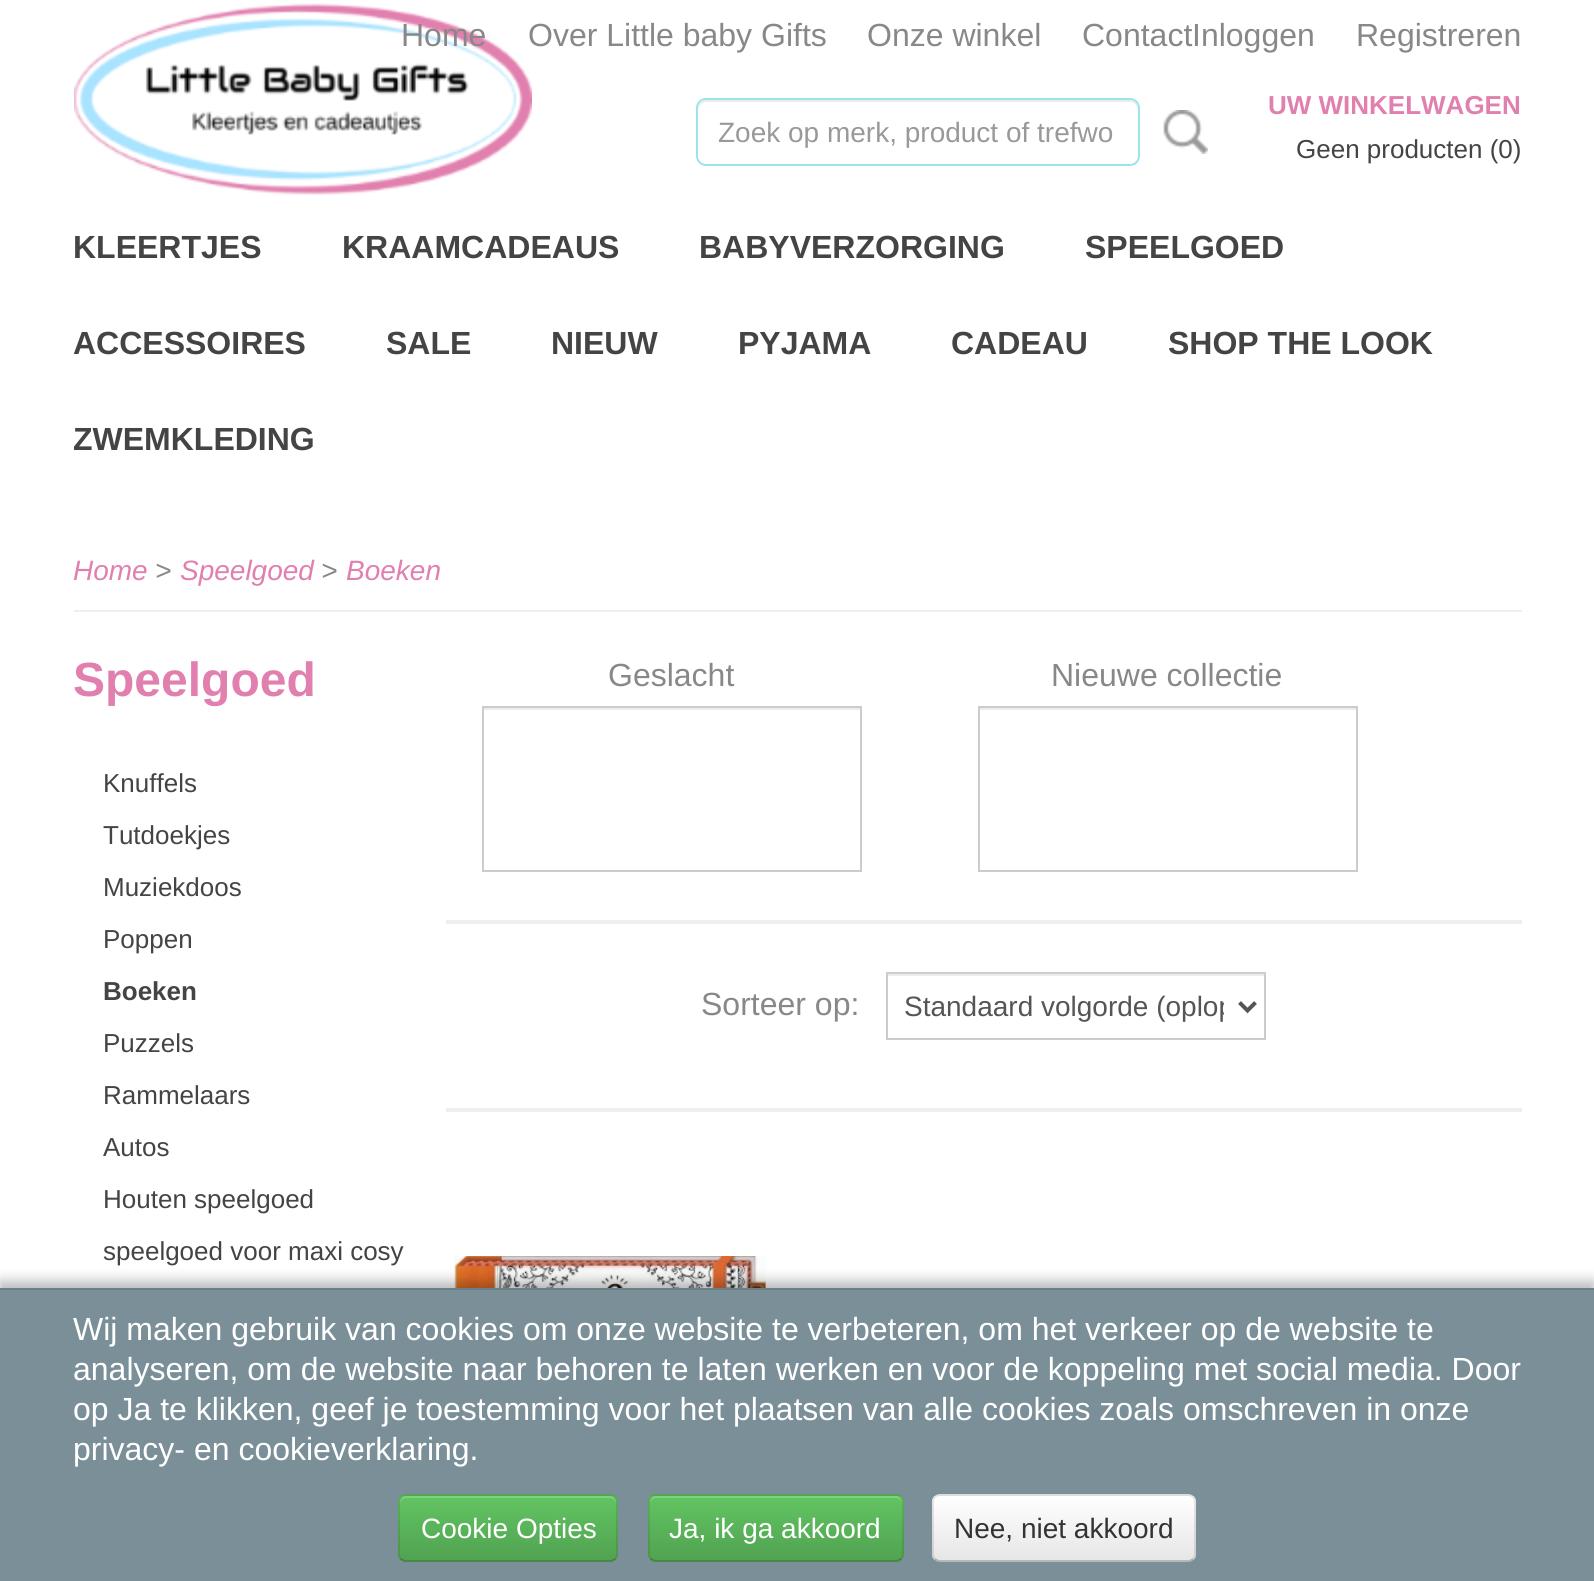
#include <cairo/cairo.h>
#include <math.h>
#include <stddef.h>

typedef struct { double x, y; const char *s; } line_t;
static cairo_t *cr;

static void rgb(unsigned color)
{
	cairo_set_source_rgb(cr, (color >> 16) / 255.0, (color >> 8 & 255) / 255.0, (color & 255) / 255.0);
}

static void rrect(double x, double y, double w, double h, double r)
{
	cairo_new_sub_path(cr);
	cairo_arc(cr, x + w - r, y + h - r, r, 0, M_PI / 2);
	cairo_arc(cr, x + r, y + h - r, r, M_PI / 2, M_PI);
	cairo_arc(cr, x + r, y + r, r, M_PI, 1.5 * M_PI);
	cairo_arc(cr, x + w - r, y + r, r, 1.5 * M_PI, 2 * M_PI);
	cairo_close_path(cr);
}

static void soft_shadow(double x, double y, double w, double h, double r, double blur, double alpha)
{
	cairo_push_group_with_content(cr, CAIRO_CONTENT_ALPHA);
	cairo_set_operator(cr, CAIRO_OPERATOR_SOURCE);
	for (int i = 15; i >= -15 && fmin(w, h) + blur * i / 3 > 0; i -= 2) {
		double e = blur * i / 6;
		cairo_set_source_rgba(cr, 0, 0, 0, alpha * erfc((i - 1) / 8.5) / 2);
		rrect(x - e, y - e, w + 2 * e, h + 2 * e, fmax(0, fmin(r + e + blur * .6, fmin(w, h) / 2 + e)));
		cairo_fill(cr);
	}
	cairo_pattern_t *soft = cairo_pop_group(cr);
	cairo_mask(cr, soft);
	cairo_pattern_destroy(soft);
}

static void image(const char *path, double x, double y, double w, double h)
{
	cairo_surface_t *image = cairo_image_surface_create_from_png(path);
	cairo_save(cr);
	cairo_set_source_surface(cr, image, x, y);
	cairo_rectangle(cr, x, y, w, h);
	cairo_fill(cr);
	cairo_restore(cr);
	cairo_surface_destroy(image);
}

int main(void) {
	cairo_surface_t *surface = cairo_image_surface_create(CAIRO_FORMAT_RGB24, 1594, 1581);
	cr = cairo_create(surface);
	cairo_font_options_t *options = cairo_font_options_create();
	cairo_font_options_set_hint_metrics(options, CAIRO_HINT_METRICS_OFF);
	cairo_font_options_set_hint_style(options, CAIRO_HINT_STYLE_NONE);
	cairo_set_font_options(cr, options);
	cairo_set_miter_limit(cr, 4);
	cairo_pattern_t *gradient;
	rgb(0xffffff);
	cairo_paint(cr);
	image("img/1.png", 74, 3, 458, 192);
	rgb(0xececec);
	cairo_new_path(cr);
	cairo_move_to(cr, 706, 102);
	cairo_line_to(cr, 1130, 102);
	cairo_curve_to(cr, 1134, 102, 1138, 106, 1138, 110);
	cairo_line_to(cr, 1138, 108);
	cairo_curve_to(cr, 1138, 104, 1134, 100, 1130, 100);
	cairo_line_to(cr, 706, 100);
	cairo_curve_to(cr, 702, 100, 698, 104, 698, 108);
	cairo_line_to(cr, 698, 110);
	cairo_curve_to(cr, 698, 106, 702, 102, 706, 102);
	cairo_close_path(cr);
	cairo_fill(cr);
	rrect(697, 99, 442, 66, 9);
	rgb(0x9ae4ec);
	cairo_stroke(cr);
	image("img/2.png", 1163, 110, 45, 44);
	rgb(0xeeeeee);
	cairo_rectangle(cr, 74, 610, 1448, 2);
	cairo_fill(cr);
	rgb(0xececec);
	cairo_rectangle(cr, 484, 708, 376, 2);
	cairo_fill(cr);
	cairo_rectangle(cr, 483, 707, 378, 164);
	rgb(0xcccccc);
	cairo_stroke(cr);
	rgb(0xececec);
	cairo_rectangle(cr, 980, 708, 376, 2);
	cairo_fill(cr);
	cairo_rectangle(cr, 979, 707, 378, 164);
	rgb(0xcccccc);
	cairo_stroke(cr);
	rgb(0xeeeeee);
	cairo_rectangle(cr, 446, 920, 1076, 4);
	cairo_fill(cr);
	rgb(0xececec);
	cairo_rectangle(cr, 888, 974, 376, 2);
	cairo_fill(cr);
	cairo_rectangle(cr, 887, 973, 378, 66);
	rgb(0xcccccc);
	cairo_stroke(cr);
	cairo_new_path(cr);
	cairo_move_to(cr, 1239.5, 1002.5);
	cairo_line_to(cr, 1247.5, 1010.5);
	cairo_line_to(cr, 1255.5, 1002.5);
	rgb(0x555555);
	cairo_set_line_width(cr, 4);
	cairo_stroke(cr);
	rgb(0xeeeeee);
	cairo_rectangle(cr, 446, 1108, 1076, 4);
	cairo_fill(cr);
	image("img/3.png", 454, 1256, 312, 32);
	rgb(0x000000);
	soft_shadow(0, 1282, 1594, 294, 0, 7, 0.3);
	rgb(0x7a8f98);
	cairo_rectangle(cr, 0, 1290, 1594, 291);
	cairo_fill(cr);
	rgb(0x697e87);
	cairo_rectangle(cr, 0, 1288, 1594, 2);
	cairo_fill(cr);
	rgb(0x5bb75b);
	rrect(398, 1494, 220, 68, 8);
	cairo_fill(cr);
	cairo_save(cr);
	rrect(398, 1494, 220, 68, 8);
	cairo_clip(cr);
	gradient = cairo_pattern_create_linear(508, 1496, 508, 1560);
	cairo_pattern_add_color_stop_rgba(gradient, 0, 0.384, 0.769, 0.384, 1);
	cairo_pattern_add_color_stop_rgba(gradient, 1, 0.318, 0.639, 0.318, 1);
	cairo_set_source(cr, gradient);
	cairo_pattern_destroy(gradient);
	cairo_rectangle(cr, 398, 1496, 220, 64);
	cairo_fill(cr);
	cairo_restore(cr);
	cairo_set_source_rgba(cr, 1, 1, 1, 0.2);
	cairo_new_path(cr);
	cairo_move_to(cr, 406, 1498);
	cairo_line_to(cr, 610, 1498);
	cairo_curve_to(cr, 613, 1498, 616, 1501, 616, 1504);
	cairo_line_to(cr, 616, 1502);
	cairo_curve_to(cr, 616, 1499, 613, 1496, 610, 1496);
	cairo_line_to(cr, 406, 1496);
	cairo_curve_to(cr, 403, 1496, 400, 1499, 400, 1502);
	cairo_line_to(cr, 400, 1504);
	cairo_curve_to(cr, 400, 1501, 403, 1498, 406, 1498);
	cairo_close_path(cr);
	cairo_fill(cr);
	cairo_new_path(cr);
	cairo_move_to(cr, 615, 1559);
	cairo_curve_to(cr, 613.5, 1560.5, 612, 1561, 610, 1561);
	cairo_line_to(cr, 406, 1561);
	cairo_curve_to(cr, 404, 1561, 402.5, 1560.5, 401, 1559);
	cairo_set_source_rgba(cr, 0, 0, 0, 0.25);
	cairo_set_line_width(cr, 2);
	cairo_stroke(cr);
	cairo_new_path(cr);
	cairo_move_to(cr, 401, 1559);
	cairo_curve_to(cr, 399.5, 1557.5, 399, 1556, 399, 1554);
	cairo_line_to(cr, 399, 1502);
	cairo_curve_to(cr, 399, 1500, 399.5, 1498.5, 401, 1497);
	cairo_curve_to(cr, 402.5, 1495.5, 404, 1495, 406, 1495);
	cairo_line_to(cr, 610, 1495);
	cairo_curve_to(cr, 612, 1495, 613.5, 1495.5, 615, 1497);
	cairo_curve_to(cr, 616.5, 1498.5, 617, 1500, 617, 1502);
	cairo_line_to(cr, 617, 1554);
	cairo_curve_to(cr, 617, 1556, 616.5, 1557.5, 615, 1559);
	cairo_set_source_rgba(cr, 0, 0, 0, 0.1);
	cairo_stroke(cr);
	rgb(0x5bb75b);
	rrect(648, 1494, 256, 68, 8);
	cairo_fill(cr);
	cairo_save(cr);
	rrect(648, 1494, 256, 68, 8);
	cairo_clip(cr);
	gradient = cairo_pattern_create_linear(776, 1496, 776, 1560);
	cairo_pattern_add_color_stop_rgba(gradient, 0, 0.384, 0.769, 0.384, 1);
	cairo_pattern_add_color_stop_rgba(gradient, 1, 0.318, 0.639, 0.318, 1);
	cairo_set_source(cr, gradient);
	cairo_pattern_destroy(gradient);
	cairo_rectangle(cr, 648, 1496, 256, 64);
	cairo_fill(cr);
	cairo_restore(cr);
	rgb(0x81cf81);
	cairo_new_path(cr);
	cairo_move_to(cr, 656, 1498);
	cairo_line_to(cr, 896, 1498);
	cairo_curve_to(cr, 899, 1498, 902, 1501, 902, 1504);
	cairo_curve_to(cr, 902, 1501, 901, 1497, 897, 1496);
	cairo_line_to(cr, 656, 1496);
	cairo_curve_to(cr, 651, 1496, 650, 1500, 650, 1504);
	cairo_curve_to(cr, 650, 1501, 653, 1498, 656, 1498);
	cairo_close_path(cr);
	cairo_fill(cr);
	cairo_new_path(cr);
	cairo_move_to(cr, 901, 1559);
	cairo_curve_to(cr, 899.5, 1560.5, 898, 1561, 896, 1561);
	cairo_line_to(cr, 656, 1561);
	cairo_curve_to(cr, 654, 1561, 652.5, 1560.5, 651, 1559);
	cairo_set_source_rgba(cr, 0, 0, 0, 0.25);
	cairo_stroke(cr);
	cairo_new_path(cr);
	cairo_move_to(cr, 651, 1559);
	cairo_curve_to(cr, 649.5, 1557.5, 649, 1556, 649, 1554);
	cairo_line_to(cr, 649, 1502);
	cairo_curve_to(cr, 649, 1500, 649.5, 1498.5, 651, 1497);
	cairo_curve_to(cr, 652.5, 1495.5, 654, 1495, 656, 1495);
	cairo_line_to(cr, 896, 1495);
	cairo_curve_to(cr, 898, 1495, 899.5, 1495.5, 901, 1497);
	cairo_curve_to(cr, 902.5, 1498.5, 903, 1500, 903, 1502);
	cairo_line_to(cr, 903, 1554);
	cairo_curve_to(cr, 903, 1556, 902.5, 1557.5, 901, 1559);
	cairo_set_source_rgba(cr, 0, 0, 0, 0.1);
	cairo_stroke(cr);
	rgb(0xf5f5f5);
	rrect(932, 1494, 264, 68, 8);
	cairo_fill(cr);
	cairo_save(cr);
	rrect(932, 1494, 264, 68, 8);
	cairo_clip(cr);
	gradient = cairo_pattern_create_linear(1064, 1496, 1064, 1560);
	cairo_pattern_add_color_stop_rgba(gradient, 0, 1, 1, 1, 1);
	cairo_pattern_add_color_stop_rgba(gradient, 1, 0.902, 0.902, 0.902, 1);
	cairo_set_source(cr, gradient);
	cairo_pattern_destroy(gradient);
	cairo_rectangle(cr, 932, 1496, 264, 64);
	cairo_fill(cr);
	cairo_restore(cr);
	cairo_new_path(cr);
	cairo_move_to(cr, 1193, 1559);
	cairo_curve_to(cr, 1191.5, 1560.5, 1190, 1561, 1188, 1561);
	cairo_line_to(cr, 940, 1561);
	cairo_curve_to(cr, 938, 1561, 936.5, 1560.5, 935, 1559);
	cairo_set_source_rgba(cr, 0, 0, 0, 0.25);
	cairo_stroke(cr);
	cairo_new_path(cr);
	cairo_move_to(cr, 935, 1559);
	cairo_curve_to(cr, 933.5, 1557.5, 933, 1556, 933, 1554);
	cairo_line_to(cr, 933, 1502);
	cairo_curve_to(cr, 933, 1500, 933.5, 1498.5, 935, 1497);
	cairo_curve_to(cr, 936.5, 1495.5, 938, 1495, 940, 1495);
	cairo_line_to(cr, 1188, 1495);
	cairo_curve_to(cr, 1190, 1495, 1191.5, 1495.5, 1193, 1497);
	cairo_curve_to(cr, 1194.5, 1498.5, 1195, 1500, 1195, 1502);
	cairo_line_to(cr, 1195, 1554);
	cairo_curve_to(cr, 1195, 1556, 1194.5, 1557.5, 1193, 1559);
	cairo_set_source_rgba(cr, 0, 0, 0, 0.1);
	cairo_stroke(cr);
	cairo_select_font_face(cr, "Liberation Sans", CAIRO_FONT_SLANT_NORMAL, CAIRO_FONT_WEIGHT_NORMAL);
	cairo_set_font_size(cr, 32);
	rgb(0x888888);
	{
		static const line_t items[] = {
			{401, 46, "Home"},
			{528, 46, "Over Little baby Gifts"},
			{867, 46, "Onze winkel"},
			{1082, 46, "Contact"},
			{1192, 46, "Inloggen"},
			{1356, 46, "Registreren"},
		};
		for (size_t i = 0; i < sizeof items / sizeof *items; i++) {
			cairo_move_to(cr, items[i].x, items[i].y);
			cairo_show_text(cr, items[i].s);
		}
	}
	cairo_select_font_face(cr, "Liberation Sans", CAIRO_FONT_SLANT_NORMAL, CAIRO_FONT_WEIGHT_BOLD);
	cairo_set_font_size(cr, 26);
	rgb(0xe17fae);
	cairo_move_to(cr, 1268, 114);
	cairo_show_text(cr, "UW WINKELWAGEN");
	cairo_select_font_face(cr, "Liberation Sans", CAIRO_FONT_SLANT_NORMAL, CAIRO_FONT_WEIGHT_NORMAL);
	rgb(0x444444);
	cairo_move_to(cr, 1296, 158);
	cairo_show_text(cr, "Geen producten (0)");
	cairo_set_font_size(cr, 28);
	rgb(0x999999);
	cairo_move_to(cr, 718, 142);
	cairo_show_text(cr, "Zoek op merk, product of trefwo");
	cairo_select_font_face(cr, "Liberation Sans", CAIRO_FONT_SLANT_NORMAL, CAIRO_FONT_WEIGHT_BOLD);
	cairo_set_font_size(cr, 32);
	rgb(0x444444);
	{
		static const line_t items[] = {
			{73, 258, "KLEERTJES"},
			{342, 258, "KRAAMCADEAUS"},
			{699, 258, "BABYVERZORGING"},
			{1085, 258, "SPEELGOED"},
			{73, 354, "ACCESSOIRES"},
			{386, 354, "SALE"},
			{551, 354, "NIEUW"},
			{738, 354, "PYJAMA"},
			{951, 354, "CADEAU"},
			{1168, 354, "SHOP THE LOOK"},
			{73, 450, "ZWEMKLEDING"},
		};
		for (size_t i = 0; i < sizeof items / sizeof *items; i++) {
			cairo_move_to(cr, items[i].x, items[i].y);
			cairo_show_text(cr, items[i].s);
		}
	}
	cairo_select_font_face(cr, "Liberation Sans", CAIRO_FONT_SLANT_ITALIC, CAIRO_FONT_WEIGHT_NORMAL);
	cairo_set_font_size(cr, 28);
	rgb(0xe17fae);
	cairo_move_to(cr, 73, 580);
	cairo_show_text(cr, "Home");
	rgb(0x888888);
	cairo_move_to(cr, 155, 580);
	cairo_show_text(cr, ">");
	rgb(0xe17fae);
	cairo_move_to(cr, 180, 580);
	cairo_show_text(cr, "Speelgoed");
	rgb(0x888888);
	cairo_move_to(cr, 321, 580);
	cairo_show_text(cr, ">");
	rgb(0xe17fae);
	cairo_move_to(cr, 346, 580);
	cairo_show_text(cr, "Boeken");
	cairo_select_font_face(cr, "Liberation Sans", CAIRO_FONT_SLANT_NORMAL, CAIRO_FONT_WEIGHT_BOLD);
	cairo_set_font_size(cr, 48);
	cairo_move_to(cr, 73, 696);
	cairo_show_text(cr, "Speelgoed");
	cairo_select_font_face(cr, "Liberation Sans", CAIRO_FONT_SLANT_NORMAL, CAIRO_FONT_WEIGHT_NORMAL);
	cairo_set_font_size(cr, 26);
	rgb(0x444444);
	{
		static const line_t items[] = {
			{103, 792, "Knuffels"},
			{103, 844, "Tutdoekjes"},
			{103, 896, "Muziekdoos"},
			{103, 948, "Poppen"},
		};
		for (size_t i = 0; i < sizeof items / sizeof *items; i++) {
			cairo_move_to(cr, items[i].x, items[i].y);
			cairo_show_text(cr, items[i].s);
		}
	}
	cairo_select_font_face(cr, "Liberation Sans", CAIRO_FONT_SLANT_NORMAL, CAIRO_FONT_WEIGHT_BOLD);
	cairo_move_to(cr, 103, 1000);
	cairo_show_text(cr, "Boeken");
	cairo_select_font_face(cr, "Liberation Sans", CAIRO_FONT_SLANT_NORMAL, CAIRO_FONT_WEIGHT_NORMAL);
	{
		static const line_t items[] = {
			{103, 1052, "Puzzels"},
			{103, 1104, "Rammelaars"},
			{103, 1156, "Autos"},
			{103, 1208, "Houten speelgoed"},
			{103, 1260, "speelgoed voor maxi cosy"},
		};
		for (size_t i = 0; i < sizeof items / sizeof *items; i++) {
			cairo_move_to(cr, items[i].x, items[i].y);
			cairo_show_text(cr, items[i].s);
		}
	}
	cairo_set_font_size(cr, 32);
	rgb(0x888888);
	{
		static const line_t items[] = {
			{608, 686, "Geslacht"},
			{1051, 686, "Nieuwe collectie"},
			{701, 1015, "Sorteer op:"},
		};
		for (size_t i = 0; i < sizeof items / sizeof *items; i++) {
			cairo_move_to(cr, items[i].x, items[i].y);
			cairo_show_text(cr, items[i].s);
		}
	}
	cairo_save(cr);
	cairo_rectangle(cr, 904, 988, 320, 36);
	cairo_clip(cr);
	cairo_set_font_size(cr, 28);
	rgb(0x555555);
	cairo_move_to(cr, 904, 1016);
	cairo_show_text(cr, "Standaard volgorde (oplop");
	cairo_restore(cr);
	rgb(0xffffff);
	{
		static const line_t items[] = {
			{73, 1340, "Wij maken gebruik van cookies om onze website te verbeteren, om het verkeer op de website te"},
			{73, 1380, "analyseren, om de website naar behoren te laten werken en voor de koppeling met social media. Door"},
			{73, 1420, "op Ja te klikken, geef je toestemming voor het plaatsen van alle cookies zoals omschreven in onze"},
			{73, 1460, "privacy- en cookieverklaring."},
		};
		for (size_t i = 0; i < sizeof items / sizeof *items; i++) {
			cairo_move_to(cr, items[i].x, items[i].y);
			cairo_show_text(cr, items[i].s);
		}
	}
	cairo_set_font_size(cr, 28);
	cairo_move_to(cr, 421, 1538);
	cairo_show_text(cr, "Cookie Opties");
	cairo_move_to(cr, 669, 1538);
	cairo_show_text(cr, "Ja, ik ga akkoord");
	rgb(0x333333);
	cairo_move_to(cr, 954, 1538);
	cairo_show_text(cr, "Nee, niet akkoord");
	cairo_surface_write_to_png(surface, "page.png");
	cairo_font_options_destroy(options);
	cairo_destroy(cr);
	cairo_surface_destroy(surface);
	return 0;
}
